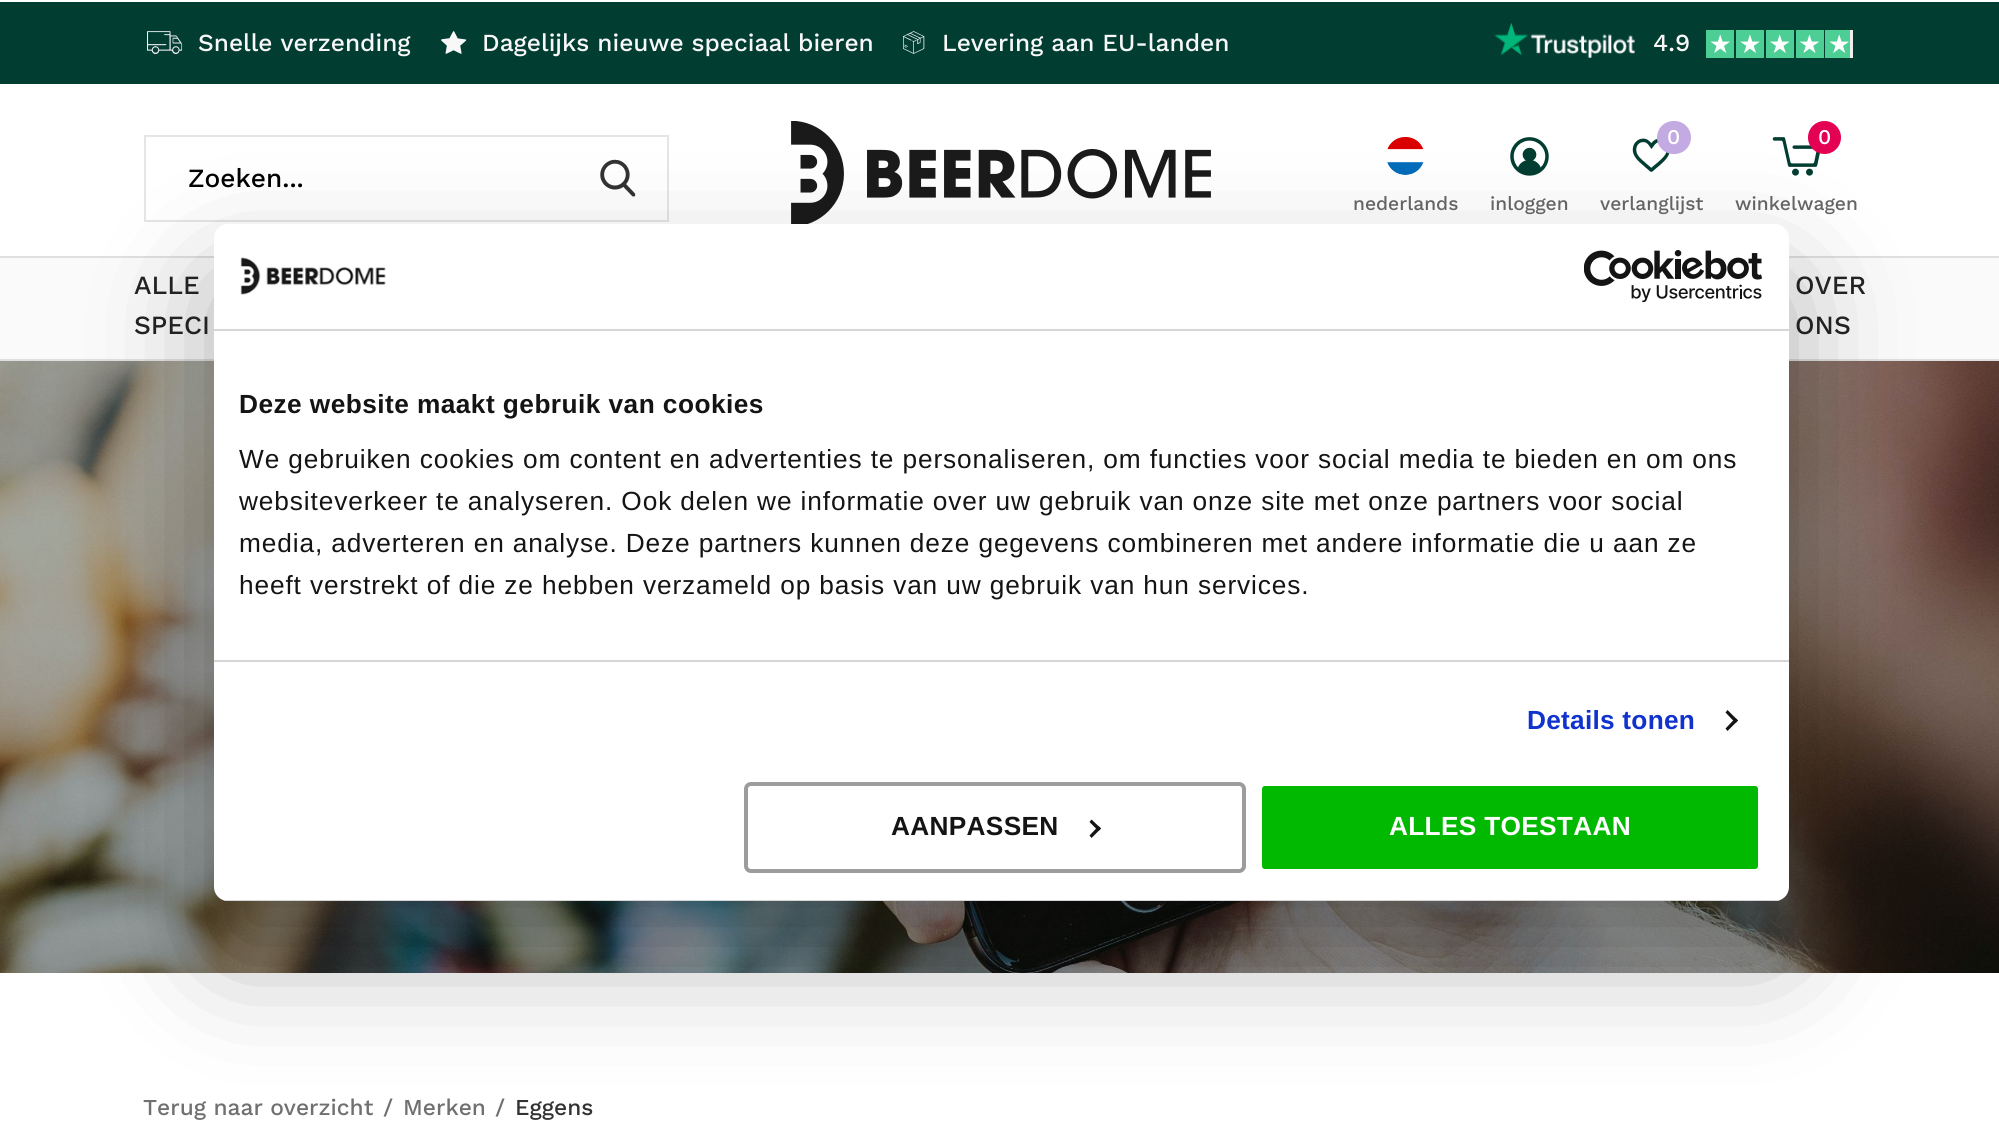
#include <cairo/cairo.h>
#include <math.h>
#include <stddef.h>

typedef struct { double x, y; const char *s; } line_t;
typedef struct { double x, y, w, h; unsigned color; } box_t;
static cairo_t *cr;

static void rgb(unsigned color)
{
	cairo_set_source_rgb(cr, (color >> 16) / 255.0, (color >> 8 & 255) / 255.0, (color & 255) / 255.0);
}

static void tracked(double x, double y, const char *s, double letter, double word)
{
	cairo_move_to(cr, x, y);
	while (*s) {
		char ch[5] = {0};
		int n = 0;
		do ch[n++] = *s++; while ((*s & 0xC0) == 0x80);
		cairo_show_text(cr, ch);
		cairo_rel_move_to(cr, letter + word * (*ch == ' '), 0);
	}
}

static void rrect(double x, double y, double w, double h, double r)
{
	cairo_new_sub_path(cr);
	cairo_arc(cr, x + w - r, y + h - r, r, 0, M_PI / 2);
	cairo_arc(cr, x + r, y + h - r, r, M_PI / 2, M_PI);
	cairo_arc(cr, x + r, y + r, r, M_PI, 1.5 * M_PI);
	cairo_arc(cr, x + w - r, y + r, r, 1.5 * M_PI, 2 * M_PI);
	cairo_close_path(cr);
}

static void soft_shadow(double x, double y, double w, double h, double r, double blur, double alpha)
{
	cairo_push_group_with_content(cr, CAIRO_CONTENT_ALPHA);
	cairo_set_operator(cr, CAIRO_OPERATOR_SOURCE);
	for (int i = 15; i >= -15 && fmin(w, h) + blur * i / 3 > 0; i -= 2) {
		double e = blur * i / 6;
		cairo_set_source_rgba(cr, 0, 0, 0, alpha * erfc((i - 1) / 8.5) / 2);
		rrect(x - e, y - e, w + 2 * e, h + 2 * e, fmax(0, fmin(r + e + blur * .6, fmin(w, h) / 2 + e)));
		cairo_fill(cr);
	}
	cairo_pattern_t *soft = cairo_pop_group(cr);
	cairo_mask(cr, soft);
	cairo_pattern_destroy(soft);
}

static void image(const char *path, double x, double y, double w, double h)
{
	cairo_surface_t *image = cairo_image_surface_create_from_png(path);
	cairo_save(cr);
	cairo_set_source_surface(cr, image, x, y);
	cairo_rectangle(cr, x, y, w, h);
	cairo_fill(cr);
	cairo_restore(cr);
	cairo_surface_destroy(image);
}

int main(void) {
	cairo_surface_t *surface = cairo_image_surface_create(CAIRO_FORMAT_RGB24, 1999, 1123);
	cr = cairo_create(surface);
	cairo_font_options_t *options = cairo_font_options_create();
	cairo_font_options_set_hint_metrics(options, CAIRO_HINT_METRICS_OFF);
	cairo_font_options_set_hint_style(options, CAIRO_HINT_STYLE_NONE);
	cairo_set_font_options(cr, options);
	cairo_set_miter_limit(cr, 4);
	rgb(0xffffff);
	cairo_paint(cr);
	rgb(0x023d32);
	cairo_rectangle(cr, 0, 2, 1999, 82);
	cairo_fill(cr);
	image("img/1.png", 147, 31, 36, 23);
	image("img/2.png", 441, 31, 26, 23);
	image("img/3.png", 903, 31, 22, 23);
	image("img/4.png", 1494, 22, 141, 36);
	image("img/5.png", 1706, 30, 28, 28);
	image("img/6.png", 1736, 30, 28, 28);
	image("img/7.png", 1766, 30, 28, 28);
	image("img/8.png", 1796, 30, 28, 28);
	image("img/9.png", 1825, 30, 25, 28);
	image("img/10.png", 1850, 30, 3, 28);
	image("img/11.png", 791, 121, 420, 103);
	image("img/12.png", 1387, 137, 37, 38);
	image("img/13.png", 1510, 137, 39, 39);
	image("img/14.png", 1632, 138, 38, 34);
	rgb(0xc4aae2);
	rrect(1657, 121, 34, 33, 16.5);
	cairo_fill(cr);
	image("img/15.png", 1772, 137, 48, 39);
	rgb(0xe40053);
	cairo_arc(cr, 1824.5, 137.5, 16.5, 0, 2 * M_PI);
	cairo_fill(cr);
	{
		static const box_t items[] = {
			{0, 258, 1999, 101, 0xfafafa},
			{0, 256, 1999, 2, 0xdfdfdf},
			{0, 359, 1999, 2, 0xdfdfdf},
		};
		for (size_t i = 0; i < sizeof items / sizeof *items; i++) {
			rgb(items[i].color);
			cairo_rectangle(cr, items[i].x, items[i].y, items[i].w, items[i].h);
			cairo_fill(cr);
		}
	}
	cairo_rectangle(cr, 145, 136, 523, 85);
	rgb(0xe5e5e5);
	cairo_stroke(cr);
	image("img/16.png", 600, 159, 36, 38);
	image("img/17.png", 0, 361, 1999, 612);
	rgb(0x000000);
	soft_shadow(214, 280, 1575, 677, 14, 59.5, 0.3);
	rgb(0xffffff);
	rrect(214, 224, 1575, 677, 14);
	cairo_fill(cr);
	rgb(0xd6d6d6);
	cairo_rectangle(cr, 214, 329, 1575, 2);
	cairo_fill(cr);
	image("img/18.png", 240, 257, 146, 38);
	image("img/19.png", 1584, 250, 178, 53);
	cairo_rectangle(cr, 214, 660, 1575, 2);
	cairo_fill(cr);
	rgb(0x141414);
	cairo_new_path(cr);
	cairo_move_to(cr, 1727.5, 710);
	cairo_line_to(cr, 1738, 720.5);
	cairo_line_to(cr, 1735.5, 723);
	cairo_line_to(cr, 1725.5, 712.5);
	cairo_close_path(cr);
	cairo_fill(cr);
	cairo_new_path(cr);
	cairo_move_to(cr, 1735.5, 718);
	cairo_line_to(cr, 1738, 720.5);
	cairo_line_to(cr, 1727.5, 731);
	cairo_line_to(cr, 1725.5, 728.5);
	cairo_close_path(cr);
	cairo_fill(cr);
	cairo_save(cr);
	rrect(214, 224, 1575, 677, 14);
	cairo_clip(cr);
	rgb(0xd6d6d6);
	cairo_rectangle(cr, 223, 900, 1557, 1);
	cairo_fill(cr);
	cairo_restore(cr);
	rrect(746, 784, 498, 87, 5);
	rgb(0x9c9c9c);
	cairo_set_line_width(cr, 4);
	cairo_stroke(cr);
	rgb(0x141414);
	cairo_new_path(cr);
	cairo_move_to(cr, 1091.5, 819.5);
	cairo_line_to(cr, 1101, 828.5);
	cairo_line_to(cr, 1098.5, 831);
	cairo_line_to(cr, 1089.5, 822);
	cairo_close_path(cr);
	cairo_fill(cr);
	cairo_new_path(cr);
	cairo_move_to(cr, 1098.5, 826);
	cairo_line_to(cr, 1101, 828.5);
	cairo_line_to(cr, 1091.5, 838);
	cairo_line_to(cr, 1089.5, 835.5);
	cairo_close_path(cr);
	cairo_fill(cr);
	rgb(0x00b900);
	rrect(1260, 784, 500, 87, 5);
	cairo_fill_preserve(cr);
	rgb(0xffffff);
	cairo_stroke(cr);
	cairo_select_font_face(cr, "Work Sans Medium", CAIRO_FONT_SLANT_NORMAL, CAIRO_FONT_WEIGHT_NORMAL);
	cairo_set_font_size(cr, 24.5);
	rgb(0xf8f8f8);
	{
		static const line_t items[] = {
			{198, 51, "Snelle verzending"},
			{482, 51, "Dagelijks nieuwe speciaal bieren"},
			{942, 51, "Levering aan EU-landen"},
			{1653, 51, "4.9"},
		};
		for (size_t i = 0; i < sizeof items / sizeof *items; i++) {
			cairo_move_to(cr, items[i].x, items[i].y);
			cairo_show_text(cr, items[i].s);
		}
	}
	cairo_set_font_size(cr, 19.25);
	rgb(0x646464);
	cairo_move_to(cr, 1353, 210);
	cairo_show_text(cr, "nederlands");
	cairo_move_to(cr, 1490, 210);
	cairo_show_text(cr, "inloggen");
	cairo_set_font_size(cr, 21);
	rgb(0xffffff);
	cairo_move_to(cr, 1667, 144);
	cairo_show_text(cr, "0");
	cairo_set_font_size(cr, 19.25);
	rgb(0x646464);
	cairo_move_to(cr, 1600, 210);
	cairo_show_text(cr, "verlanglijst");
	cairo_set_font_size(cr, 21);
	rgb(0xffffff);
	cairo_move_to(cr, 1818, 144);
	cairo_show_text(cr, "0");
	cairo_set_font_size(cr, 19.25);
	rgb(0x646464);
	cairo_move_to(cr, 1735, 210);
	cairo_show_text(cr, "winkelwagen");
	cairo_set_font_size(cr, 26.25);
	rgb(0x222222);
	{
		static const line_t items[] = {
			{134, 294, "ALLE"},
			{134, 334, "SPECI"},
			{1795, 294, "OVER"},
			{1795, 334, "ONS"},
		};
		for (size_t i = 0; i < sizeof items / sizeof *items; i++) {
			cairo_move_to(cr, items[i].x, items[i].y);
			cairo_show_text(cr, items[i].s);
		}
	}
	rgb(0x000000);
	cairo_move_to(cr, 188, 187);
	cairo_show_text(cr, "Zoeken...");
	cairo_set_font_size(cr, 22.75);
	rgb(0x707070);
	{
		static const line_t items[] = {
			{143, 1115, "Terug naar overzicht"},
			{383, 1115, "/"},
			{403, 1115, "Merken"},
			{495, 1115, "/"},
		};
		for (size_t i = 0; i < sizeof items / sizeof *items; i++) {
			cairo_move_to(cr, items[i].x, items[i].y);
			cairo_show_text(cr, items[i].s);
		}
	}
	rgb(0x333333);
	cairo_move_to(cr, 515, 1115);
	cairo_show_text(cr, "Eggens");
	cairo_select_font_face(cr, "Liberation Sans", CAIRO_FONT_SLANT_NORMAL, CAIRO_FONT_WEIGHT_BOLD);
	cairo_set_font_size(cr, 26.25);
	rgb(0x141414);
	tracked(239, 413, "Deze website maakt gebruik van cookies", 0.45, 0);
	cairo_select_font_face(cr, "Liberation Sans", CAIRO_FONT_SLANT_NORMAL, CAIRO_FONT_WEIGHT_NORMAL);
	{
		static const line_t items[] = {
			{239, 468, "We gebruiken cookies om content en advertenties te personaliseren, om functies voor social media te bieden en om ons"},
			{239, 510, "websiteverkeer te analyseren. Ook delen we informatie over uw gebruik van onze site met onze partners voor social"},
			{239, 552, "media, adverteren en analyse. Deze partners kunnen deze gegevens combineren met andere informatie die u aan ze"},
			{239, 594, "heeft verstrekt of die ze hebben verzameld op basis van uw gebruik van hun services."},
		};
		for (size_t i = 0; i < sizeof items / sizeof *items; i++) {
			tracked(items[i].x, items[i].y, items[i].s, 0.88, 0);
		}
	}
	cairo_select_font_face(cr, "Liberation Sans", CAIRO_FONT_SLANT_NORMAL, CAIRO_FONT_WEIGHT_BOLD);
	rgb(0x1032cf);
	tracked(1527, 729, "Details tonen", 0.25, 0);
	rgb(0x141414);
	tracked(891, 835, "AANPASSEN", 0.3, 0);
	rgb(0xffffff);
	tracked(1389, 835, "ALLES TOESTAAN", 0.3, 0);
	cairo_surface_write_to_png(surface, "page.png");
	cairo_font_options_destroy(options);
	cairo_destroy(cr);
	cairo_surface_destroy(surface);
	return 0;
}
